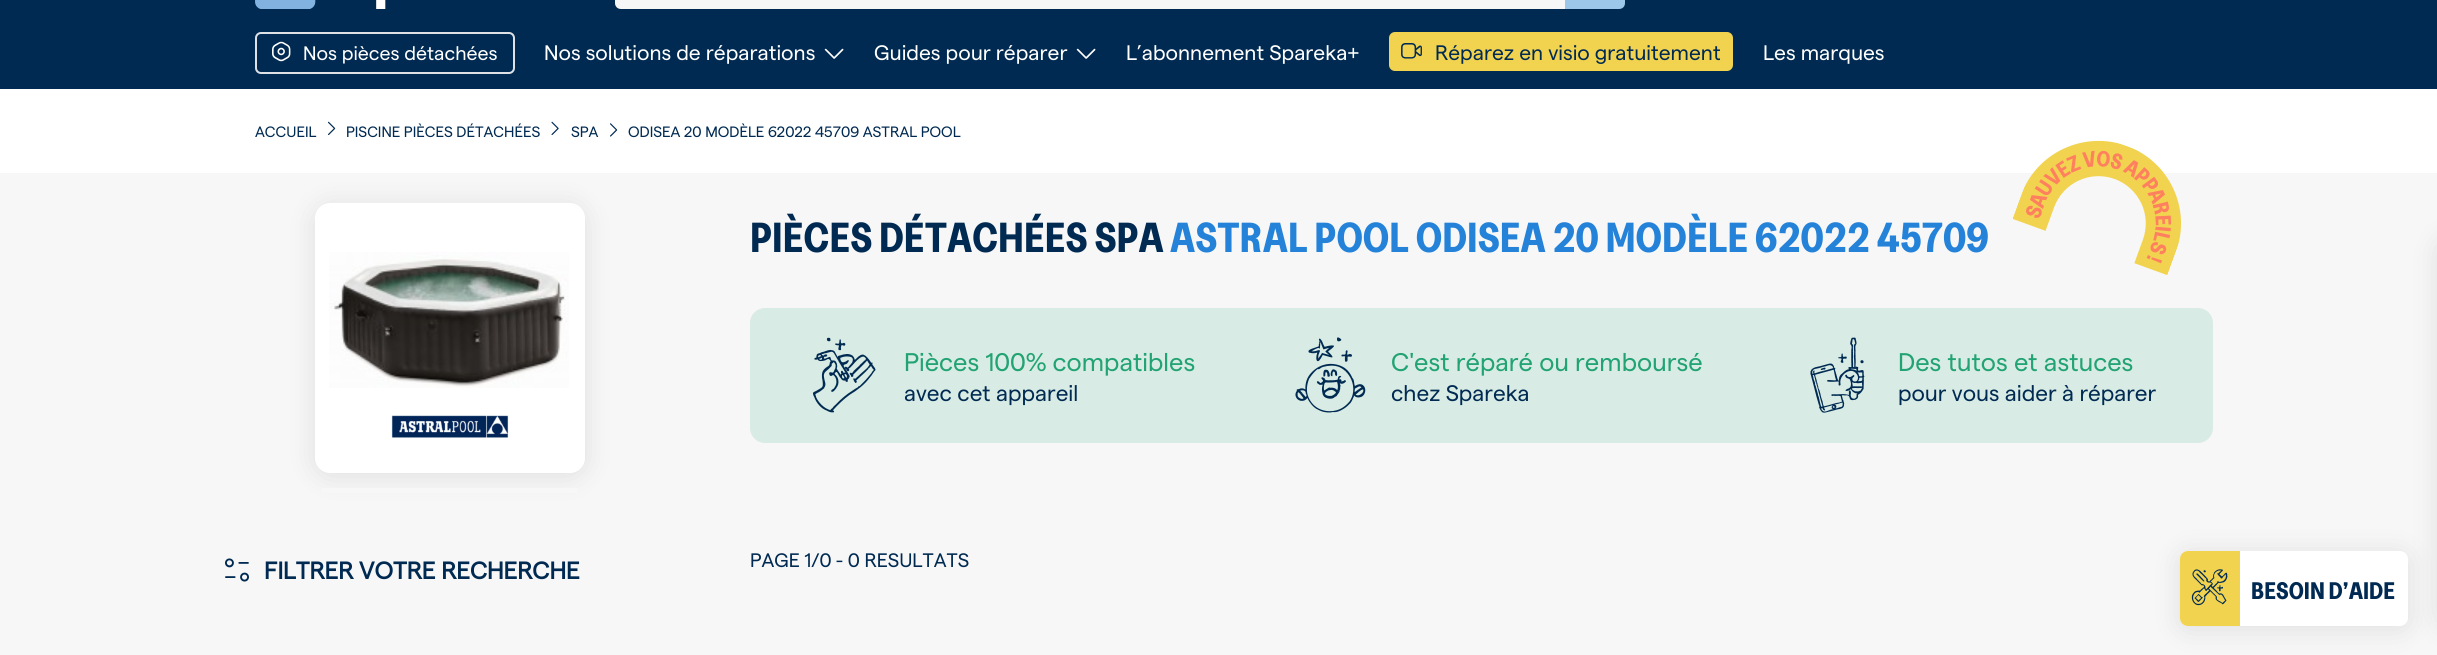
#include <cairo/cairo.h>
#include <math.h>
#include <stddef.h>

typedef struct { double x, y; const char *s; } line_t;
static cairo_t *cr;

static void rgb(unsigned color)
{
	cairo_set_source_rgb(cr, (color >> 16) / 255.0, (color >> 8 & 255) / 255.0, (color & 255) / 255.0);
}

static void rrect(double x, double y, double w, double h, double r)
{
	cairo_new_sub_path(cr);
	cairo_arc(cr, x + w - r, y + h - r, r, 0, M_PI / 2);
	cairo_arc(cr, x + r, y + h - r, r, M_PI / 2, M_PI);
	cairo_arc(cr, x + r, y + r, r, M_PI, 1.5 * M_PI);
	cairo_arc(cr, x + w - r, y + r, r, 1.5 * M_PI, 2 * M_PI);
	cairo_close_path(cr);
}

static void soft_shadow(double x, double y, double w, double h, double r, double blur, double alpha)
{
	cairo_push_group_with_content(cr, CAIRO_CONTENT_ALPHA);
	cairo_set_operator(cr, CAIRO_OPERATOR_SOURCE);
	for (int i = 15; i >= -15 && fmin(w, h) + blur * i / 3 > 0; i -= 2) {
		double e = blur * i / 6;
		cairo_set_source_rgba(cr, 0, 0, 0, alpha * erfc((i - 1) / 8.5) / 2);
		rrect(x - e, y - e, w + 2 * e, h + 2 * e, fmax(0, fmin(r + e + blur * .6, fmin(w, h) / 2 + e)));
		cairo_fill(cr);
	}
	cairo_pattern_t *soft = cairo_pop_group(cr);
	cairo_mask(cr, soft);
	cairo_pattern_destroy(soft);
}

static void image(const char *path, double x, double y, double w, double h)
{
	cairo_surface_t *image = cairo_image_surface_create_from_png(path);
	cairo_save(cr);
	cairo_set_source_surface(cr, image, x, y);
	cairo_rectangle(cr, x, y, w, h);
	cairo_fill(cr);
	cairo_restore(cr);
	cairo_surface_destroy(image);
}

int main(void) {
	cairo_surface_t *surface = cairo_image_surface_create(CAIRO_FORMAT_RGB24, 2437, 655);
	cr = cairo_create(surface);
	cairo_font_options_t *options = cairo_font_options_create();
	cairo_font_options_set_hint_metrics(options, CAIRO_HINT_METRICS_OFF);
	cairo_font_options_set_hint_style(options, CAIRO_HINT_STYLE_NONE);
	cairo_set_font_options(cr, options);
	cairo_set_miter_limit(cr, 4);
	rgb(0xf7f7f7);
	cairo_paint(cr);
	rgb(0x002a52);
	cairo_rectangle(cr, 0, 0, 2437, 89);
	cairo_fill(cr);
	image("img/1.png", 255, 0, 131, 9);
	rgb(0xf7f7f7);
	cairo_new_path(cr);
	cairo_move_to(cr, 621, -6);
	cairo_line_to(cr, 1565, -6);
	cairo_line_to(cr, 1565, 9);
	cairo_line_to(cr, 621, 9);
	cairo_curve_to(cr, 617.5, 9, 615, 6.5, 615, 3);
	cairo_line_to(cr, 615, 0);
	cairo_curve_to(cr, 615, -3.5, 617.5, -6, 621, -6);
	cairo_close_path(cr);
	cairo_fill(cr);
	rgb(0x9dc7ea);
	cairo_new_path(cr);
	cairo_move_to(cr, 1565, -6);
	cairo_line_to(cr, 1619, -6);
	cairo_curve_to(cr, 1622.5, -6, 1625, -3.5, 1625, 0);
	cairo_line_to(cr, 1625, 3);
	cairo_curve_to(cr, 1625, 6.5, 1622.5, 9, 1619, 9);
	cairo_line_to(cr, 1565, 9);
	cairo_close_path(cr);
	cairo_fill(cr);
	rrect(256, 33, 258, 40, 5);
	rgb(0xdee2e6);
	cairo_stroke(cr);
	image("img/2.png", 272, 41, 19, 21);
	image("img/3.png", 824, 48, 20, 11);
	image("img/3.png", 1076, 48, 20, 11);
	rgb(0xf1d350);
	rrect(1389, 32, 344, 39, 6);
	cairo_fill(cr);
	image("img/4.png", 1401, 43, 21, 16);
	rgb(0xffffff);
	cairo_rectangle(cr, 0, 89, 2437, 84);
	cairo_fill(cr);
	image("img/5.png", 328, 121, 8, 14);
	image("img/6.png", 551, 121, 8, 14);
	image("img/7.png", 610, 123, 8, 14);
	rgb(0x000000);
	soft_shadow(315, 206, 270, 270, 15, 13.5, 0.1);
	rgb(0xffffff);
	rrect(315, 203, 270, 270, 15);
	cairo_fill(cr);
	image("img/8.png", 329, 252, 240, 136);
	image("img/9.png", 391, 415, 118, 23);
	image("img/10.png", 2012, 140, 169, 135);
	rgb(0xd8ebe4);
	rrect(750, 308, 1463, 135, 15);
	cairo_fill(cr);
	image("img/11.png", 813, 337, 63, 76);
	image("img/12.png", 1295, 337, 71, 76);
	image("img/13.png", 1810, 337, 55, 76);
	rgb(0xf7f7f7);
	cairo_rectangle(cr, 322, 488, 256, 5);
	cairo_fill(cr);
	image("img/14.png", 225, 558, 24, 24);
	rgb(0x000000);
	soft_shadow(2180, 554, 228, 75, 8, 13.5, 0.1);
	rgb(0xffffff);
	rrect(2180, 551, 228, 75, 8);
	cairo_fill(cr);
	rgb(0xf1d350);
	cairo_new_path(cr);
	cairo_move_to(cr, 2188, 551);
	cairo_line_to(cr, 2240, 551);
	cairo_line_to(cr, 2240, 626);
	cairo_line_to(cr, 2188, 626);
	cairo_curve_to(cr, 2183.5, 626, 2180, 622.5, 2180, 618);
	cairo_line_to(cr, 2180, 559);
	cairo_curve_to(cr, 2180, 554.5, 2183.5, 551, 2188, 551);
	cairo_close_path(cr);
	cairo_fill(cr);
	image("img/15.png", 2191, 569, 37, 37);
	rgb(0x000000);
	soft_shadow(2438, 237, 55, 392, 15, 13.5, 0.1);
	cairo_select_font_face(cr, "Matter", CAIRO_FONT_SLANT_NORMAL, CAIRO_FONT_WEIGHT_NORMAL);
	cairo_set_font_size(cr, 19.5);
	rgb(0xffffff);
	cairo_move_to(cr, 303, 60);
	cairo_show_text(cr, "Nos pièces détachées");
	cairo_set_font_size(cr, 21);
	{
		static const line_t items[] = {
			{544, 60, "Nos solutions de réparations"},
			{874, 60, "Guides pour réparer"},
			{1126, 60, "L’abonnement Spareka+"},
		};
		for (size_t i = 0; i < sizeof items / sizeof *items; i++) {
			cairo_move_to(cr, items[i].x, items[i].y);
			cairo_show_text(cr, items[i].s);
		}
	}
	rgb(0x002a52);
	cairo_move_to(cr, 1435, 60);
	cairo_show_text(cr, "Réparez en visio gratuitement");
	rgb(0xffffff);
	cairo_move_to(cr, 1763, 60);
	cairo_show_text(cr, "Les marques");
	cairo_set_font_size(cr, 15);
	rgb(0x002a52);
	{
		static const line_t items[] = {
			{255, 137, "ACCUEIL"},
			{346, 137, "PISCINE PIÈCES DÉTACHÉES"},
			{571, 137, "SPA"},
			{628, 137, "ODISEA 20 MODÈLE 62022 45709 ASTRAL POOL"},
		};
		for (size_t i = 0; i < sizeof items / sizeof *items; i++) {
			cairo_move_to(cr, items[i].x, items[i].y);
			cairo_show_text(cr, items[i].s);
		}
	}
	cairo_select_font_face(cr, "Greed", CAIRO_FONT_SLANT_NORMAL, CAIRO_FONT_WEIGHT_BOLD);
	cairo_set_font_size(cr, 42);
	cairo_move_to(cr, 750, 252);
	cairo_show_text(cr, "PIÈCES DÉTACHÉES SPA");
	rgb(0x2482d9);
	cairo_move_to(cr, 1170, 252);
	cairo_show_text(cr, "ASTRAL POOL ODISEA 20 MODÈLE 62022 45709");
	cairo_select_font_face(cr, "Matter", CAIRO_FONT_SLANT_NORMAL, CAIRO_FONT_WEIGHT_NORMAL);
	cairo_set_font_size(cr, 25.5);
	rgb(0x22a373);
	cairo_move_to(cr, 904, 371);
	cairo_show_text(cr, "Pièces 100% compatibles");
	cairo_set_font_size(cr, 22.5);
	rgb(0x002a52);
	cairo_move_to(cr, 904, 401);
	cairo_show_text(cr, "avec cet appareil");
	cairo_set_font_size(cr, 25.5);
	rgb(0x22a373);
	cairo_move_to(cr, 1391, 371);
	cairo_show_text(cr, "C'est réparé ou remboursé");
	cairo_set_font_size(cr, 22.5);
	rgb(0x002a52);
	cairo_move_to(cr, 1391, 401);
	cairo_show_text(cr, "chez Spareka");
	cairo_set_font_size(cr, 25.5);
	rgb(0x22a373);
	cairo_move_to(cr, 1898, 371);
	cairo_show_text(cr, "Des tutos et astuces");
	cairo_set_font_size(cr, 22.5);
	rgb(0x002a52);
	cairo_move_to(cr, 1898, 401);
	cairo_show_text(cr, "pour vous aider à réparer");
	cairo_set_font_size(cr, 19.5);
	cairo_move_to(cr, 750, 567);
	cairo_show_text(cr, "PAGE 1/0 - 0 RESULTATS");
	cairo_select_font_face(cr, "Matter", CAIRO_FONT_SLANT_NORMAL, CAIRO_FONT_WEIGHT_BOLD);
	cairo_set_font_size(cr, 24);
	cairo_move_to(cr, 264, 579);
	cairo_show_text(cr, "FILTRER VOTRE RECHERCHE");
	cairo_select_font_face(cr, "Greed", CAIRO_FONT_SLANT_NORMAL, CAIRO_FONT_WEIGHT_BOLD);
	cairo_move_to(cr, 2251, 599);
	cairo_show_text(cr, "BESOIN D’AIDE");
	cairo_surface_write_to_png(surface, "page.png");
	cairo_font_options_destroy(options);
	cairo_destroy(cr);
	cairo_surface_destroy(surface);
	return 0;
}
